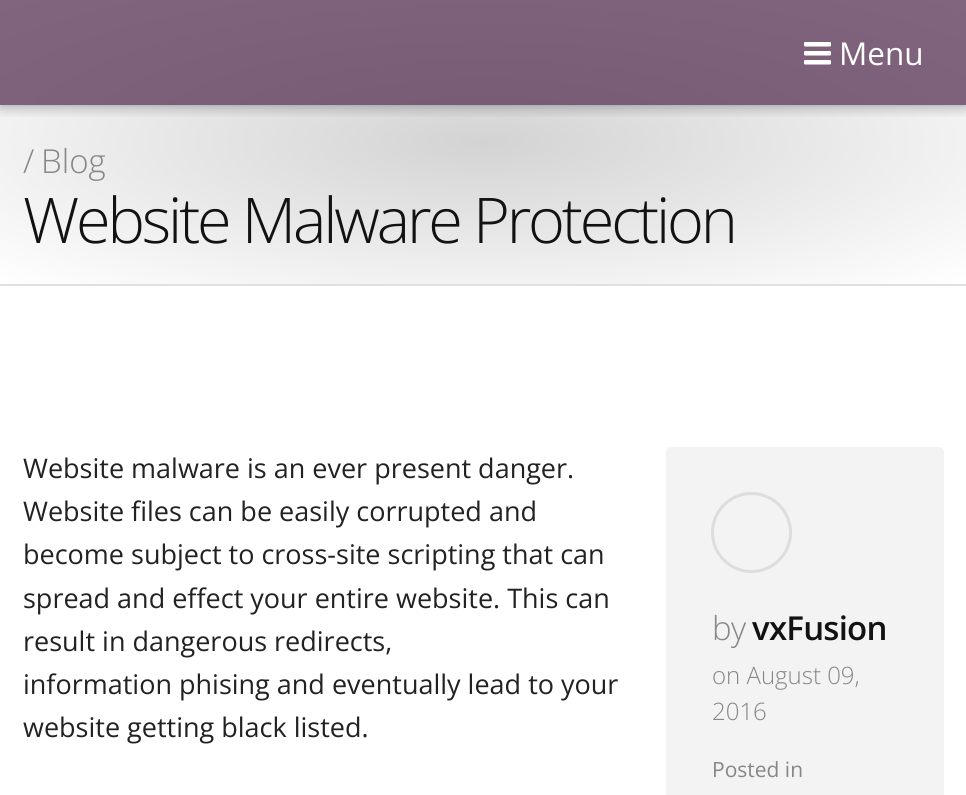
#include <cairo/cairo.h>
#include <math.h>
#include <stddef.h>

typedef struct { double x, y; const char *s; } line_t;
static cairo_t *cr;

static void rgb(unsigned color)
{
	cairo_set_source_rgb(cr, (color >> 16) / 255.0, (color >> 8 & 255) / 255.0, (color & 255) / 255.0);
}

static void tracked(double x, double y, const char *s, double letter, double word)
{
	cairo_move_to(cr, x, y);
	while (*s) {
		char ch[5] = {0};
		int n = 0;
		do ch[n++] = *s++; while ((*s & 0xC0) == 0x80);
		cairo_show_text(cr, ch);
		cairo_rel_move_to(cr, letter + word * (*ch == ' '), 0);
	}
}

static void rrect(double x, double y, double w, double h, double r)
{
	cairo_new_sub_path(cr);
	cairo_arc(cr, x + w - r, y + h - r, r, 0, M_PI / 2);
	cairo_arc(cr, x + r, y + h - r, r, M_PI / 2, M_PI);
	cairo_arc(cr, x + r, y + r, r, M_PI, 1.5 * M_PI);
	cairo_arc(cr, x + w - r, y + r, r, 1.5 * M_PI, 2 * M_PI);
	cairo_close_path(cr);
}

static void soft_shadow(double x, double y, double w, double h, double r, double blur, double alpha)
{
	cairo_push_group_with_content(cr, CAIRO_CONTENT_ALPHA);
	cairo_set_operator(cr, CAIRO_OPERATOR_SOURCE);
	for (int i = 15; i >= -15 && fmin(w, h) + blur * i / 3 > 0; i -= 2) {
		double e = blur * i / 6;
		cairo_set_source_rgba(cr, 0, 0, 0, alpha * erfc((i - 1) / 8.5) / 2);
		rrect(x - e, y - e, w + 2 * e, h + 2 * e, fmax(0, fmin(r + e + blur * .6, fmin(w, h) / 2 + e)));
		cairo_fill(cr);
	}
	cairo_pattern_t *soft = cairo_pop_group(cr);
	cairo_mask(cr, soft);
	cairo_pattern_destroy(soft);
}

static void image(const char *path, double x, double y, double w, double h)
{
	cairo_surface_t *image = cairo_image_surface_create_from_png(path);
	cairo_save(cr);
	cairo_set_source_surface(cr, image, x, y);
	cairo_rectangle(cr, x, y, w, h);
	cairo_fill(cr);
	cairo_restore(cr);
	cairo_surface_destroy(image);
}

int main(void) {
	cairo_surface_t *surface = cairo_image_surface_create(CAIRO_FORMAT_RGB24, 966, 795);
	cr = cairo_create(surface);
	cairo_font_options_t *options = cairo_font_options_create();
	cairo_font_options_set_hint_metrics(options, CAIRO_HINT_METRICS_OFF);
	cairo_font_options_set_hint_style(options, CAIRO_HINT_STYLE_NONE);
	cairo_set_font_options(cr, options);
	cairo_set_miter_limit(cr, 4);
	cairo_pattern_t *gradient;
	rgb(0xffffff);
	cairo_paint(cr);
	gradient = cairo_pattern_create_radial(0, 0, 0, 0, 0, 1);
	cairo_pattern_set_matrix(gradient, &(cairo_matrix_t){1.0 / 683, 0, 0, 1.0 / 200, -1.0 * 483 / 683, -1.0 * 142 / 200});
	cairo_pattern_add_color_stop_rgba(gradient, 0, 0.827, 0.827, 0.827, 1);
	cairo_pattern_add_color_stop_rgba(gradient, 1, 1, 1, 1, 1);
	cairo_set_source(cr, gradient);
	cairo_pattern_destroy(gradient);
	cairo_rectangle(cr, 0, 105, 966, 179);
	cairo_fill(cr);
	gradient = cairo_pattern_create_radial(0, 0, 0, 0, 0, 1);
	cairo_pattern_set_matrix(gradient, &(cairo_matrix_t){1.0 / 683, 0, 0, 1.0 / 200, -1.0 * 483 / 683, -1.0 * 142 / 200});
	cairo_pattern_add_color_stop_rgba(gradient, 0, 0.463, 0.349, 0.447, 1);
	cairo_pattern_add_color_stop_rgba(gradient, 1, 0.506, 0.392, 0.49, 1);
	cairo_set_source(cr, gradient);
	cairo_pattern_destroy(gradient);
	cairo_rectangle(cr, 0, 0, 966, 105);
	cairo_fill(cr);
	cairo_save(cr);
	cairo_rectangle(cr, 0, 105, 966, 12);
	cairo_clip(cr);
	rgb(0x000000);
	soft_shadow(0, 0, 966, 105, 0, 7.5, 0.4);
	cairo_restore(cr);
	image("img/1.png", 804, 42, 27, 23);
	rgb(0xe0e0e0);
	cairo_rectangle(cr, 0, 284, 966, 2);
	cairo_fill(cr);
	rgb(0xf3f3f3);
	rrect(666, 447, 278, 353, 5);
	cairo_fill(cr);
	cairo_arc(cr, 751.5, 532.5, 39, 0, 2 * M_PI);
	rgb(0xdddddd);
	cairo_set_line_width(cr, 3);
	cairo_stroke(cr);
	cairo_select_font_face(cr, "Open Sans", CAIRO_FONT_SLANT_NORMAL, CAIRO_FONT_WEIGHT_NORMAL);
	cairo_set_font_size(cr, 31.5);
	rgb(0xffffff);
	cairo_move_to(cr, 839, 65);
	cairo_show_text(cr, "Menu");
	cairo_select_font_face(cr, "Open Sans Light", CAIRO_FONT_SLANT_NORMAL, CAIRO_FONT_WEIGHT_NORMAL);
	cairo_set_font_size(cr, 33);
	rgb(0x868686);
	cairo_move_to(cr, 23, 173);
	cairo_show_text(cr, "/");
	cairo_move_to(cr, 41, 173);
	cairo_show_text(cr, "Blog");
	cairo_set_font_size(cr, 63);
	rgb(0x121212);
	tracked(23, 243, "Website Malware Protection", -3.15, 0);
	cairo_select_font_face(cr, "Open Sans", CAIRO_FONT_SLANT_NORMAL, CAIRO_FONT_WEIGHT_NORMAL);
	cairo_set_font_size(cr, 27);
	rgb(0x222222);
	{
		static const line_t items[] = {
			{23, 478, "Website malware is an ever present danger."},
			{23, 521, "Website files can be easily corrupted and"},
			{23, 564, "become subject to cross-site scripting that can"},
			{23, 608, "spread and effect your entire website. This can"},
			{23, 651, "result in dangerous redirects,"},
			{23, 694, "information phising and eventually lead to your"},
			{23, 737, "website getting black listed."},
		};
		for (size_t i = 0; i < sizeof items / sizeof *items; i++) {
			cairo_move_to(cr, items[i].x, items[i].y);
			cairo_show_text(cr, items[i].s);
		}
	}
	cairo_select_font_face(cr, "Open Sans Light", CAIRO_FONT_SLANT_NORMAL, CAIRO_FONT_WEIGHT_NORMAL);
	cairo_set_font_size(cr, 33);
	rgb(0x868686);
	tracked(712, 640, "by", -0.75, 0);
	cairo_select_font_face(cr, "Open Sans SemiBold", CAIRO_FONT_SLANT_NORMAL, CAIRO_FONT_WEIGHT_NORMAL);
	rgb(0x121212);
	tracked(752, 640, "vxFusion", -0.75, 0);
	cairo_select_font_face(cr, "Open Sans Light", CAIRO_FONT_SLANT_NORMAL, CAIRO_FONT_WEIGHT_NORMAL);
	cairo_set_font_size(cr, 24);
	rgb(0x868686);
	cairo_move_to(cr, 712, 684);
	cairo_show_text(cr, "on August 09,");
	cairo_move_to(cr, 712, 720);
	cairo_show_text(cr, "2016");
	cairo_select_font_face(cr, "Open Sans", CAIRO_FONT_SLANT_NORMAL, CAIRO_FONT_WEIGHT_NORMAL);
	cairo_set_font_size(cr, 21);
	cairo_move_to(cr, 712, 777);
	cairo_show_text(cr, "Posted in");
	cairo_surface_write_to_png(surface, "page.png");
	cairo_font_options_destroy(options);
	cairo_destroy(cr);
	cairo_surface_destroy(surface);
	return 0;
}
